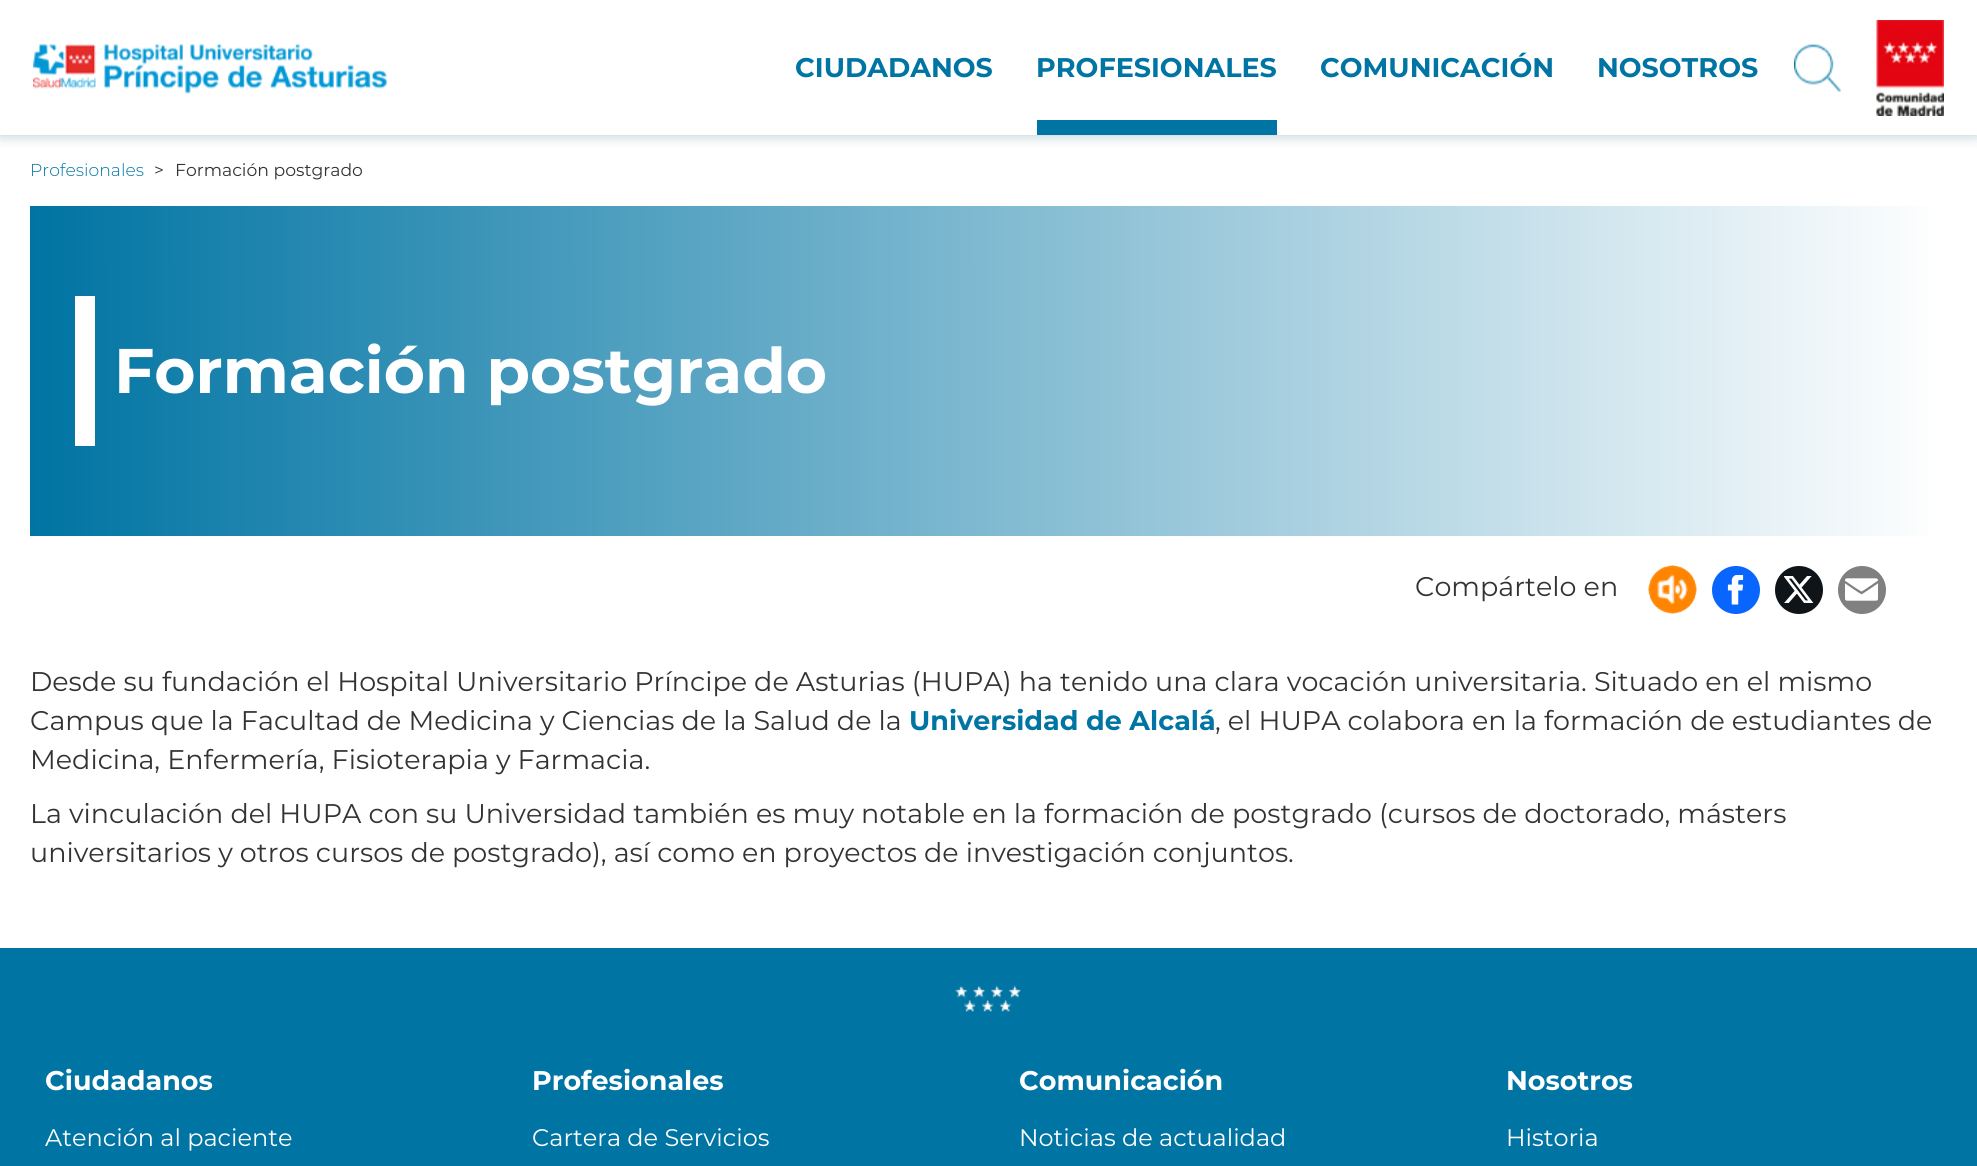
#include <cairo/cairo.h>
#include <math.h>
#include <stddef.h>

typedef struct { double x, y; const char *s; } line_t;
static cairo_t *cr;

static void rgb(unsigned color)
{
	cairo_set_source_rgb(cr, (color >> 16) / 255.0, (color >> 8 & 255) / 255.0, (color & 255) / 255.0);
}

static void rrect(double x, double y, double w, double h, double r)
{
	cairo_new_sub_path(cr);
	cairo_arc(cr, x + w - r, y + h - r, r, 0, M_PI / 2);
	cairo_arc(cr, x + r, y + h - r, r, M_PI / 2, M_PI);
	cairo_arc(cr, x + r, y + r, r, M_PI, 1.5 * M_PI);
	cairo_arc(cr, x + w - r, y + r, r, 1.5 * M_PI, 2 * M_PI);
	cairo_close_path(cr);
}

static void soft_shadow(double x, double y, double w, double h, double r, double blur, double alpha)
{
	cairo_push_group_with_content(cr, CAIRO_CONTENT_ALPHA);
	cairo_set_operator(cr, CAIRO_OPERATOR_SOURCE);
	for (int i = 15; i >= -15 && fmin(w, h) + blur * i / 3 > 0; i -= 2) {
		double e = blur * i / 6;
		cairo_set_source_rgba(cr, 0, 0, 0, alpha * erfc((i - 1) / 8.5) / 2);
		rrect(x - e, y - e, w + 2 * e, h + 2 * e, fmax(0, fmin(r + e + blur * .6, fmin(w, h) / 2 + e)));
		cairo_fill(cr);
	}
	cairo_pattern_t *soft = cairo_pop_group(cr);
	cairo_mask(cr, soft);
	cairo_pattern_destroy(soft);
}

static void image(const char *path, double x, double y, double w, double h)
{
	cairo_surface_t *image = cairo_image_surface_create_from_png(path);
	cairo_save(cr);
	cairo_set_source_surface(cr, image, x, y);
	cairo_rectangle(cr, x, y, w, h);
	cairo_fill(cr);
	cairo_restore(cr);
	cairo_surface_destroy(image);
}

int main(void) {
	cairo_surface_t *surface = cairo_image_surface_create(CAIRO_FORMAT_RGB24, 1977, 1166);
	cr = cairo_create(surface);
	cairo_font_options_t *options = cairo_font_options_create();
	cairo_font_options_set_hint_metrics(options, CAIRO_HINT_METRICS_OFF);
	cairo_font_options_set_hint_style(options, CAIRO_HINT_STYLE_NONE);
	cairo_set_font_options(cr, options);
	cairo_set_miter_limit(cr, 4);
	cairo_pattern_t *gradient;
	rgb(0xffffff);
	cairo_paint(cr);
	cairo_save(cr);
	cairo_rectangle(cr, 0, 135, 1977, 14);
	cairo_clip(cr);
	rgb(0xb3c9d2);
	soft_shadow(0, 0, 1977, 135, 0, 7, 1);
	cairo_restore(cr);
	image("img/1.png", 33, 43, 354, 51);
	rgb(0x0074a3);
	cairo_rectangle(cr, 1037, 120, 240, 15);
	cairo_fill(cr);
	image("img/2.png", 1794, 44, 47, 48);
	image("img/3.png", 1876, 20, 68, 96);
	gradient = cairo_pattern_create_linear(30, 371, 1947, 370);
	cairo_pattern_add_color_stop_rgba(gradient, 0, 0, 0.455, 0.639, 1);
	cairo_pattern_add_color_stop_rgba(gradient, 1, 1, 1, 1, 1);
	cairo_set_source(cr, gradient);
	cairo_pattern_destroy(gradient);
	cairo_rectangle(cr, 30, 206, 1898, 330);
	cairo_fill(cr);
	rgb(0xffffff);
	cairo_rectangle(cr, 75, 296, 20, 150);
	cairo_fill(cr);
	image("img/4.png", 1648, 565, 49, 49);
	rgb(0x0866ff);
	cairo_arc(cr, 1736, 590, 24, 0, 2 * M_PI);
	cairo_fill(cr);
	image("img/5.png", 1727, 575, 17, 30);
	rgb(0x0f1419);
	cairo_arc(cr, 1799, 590, 24, 0, 2 * M_PI);
	cairo_fill(cr);
	image("img/6.png", 1784, 576, 30, 27);
	rgb(0x808080);
	cairo_arc(cr, 1862, 590, 24, 0, 2 * M_PI);
	cairo_fill(cr);
	image("img/7.png", 1845, 578, 33, 23);
	rgb(0x0074a3);
	cairo_rectangle(cr, 0, 948, 1977, 218);
	cairo_fill(cr);
	image("img/8.png", 955, 985, 66, 27);
	cairo_select_font_face(cr, "Montserrat", CAIRO_FONT_SLANT_NORMAL, CAIRO_FONT_WEIGHT_BOLD);
	cairo_set_font_size(cr, 27);
	{
		static const line_t items[] = {
			{795, 77, "CIUDADANOS"},
			{1036, 77, "PROFESIONALES"},
			{1320, 77, "COMUNICACIÓN"},
			{1597, 77, "NOSOTROS"},
		};
		for (size_t i = 0; i < sizeof items / sizeof *items; i++) {
			cairo_move_to(cr, items[i].x, items[i].y);
			cairo_show_text(cr, items[i].s);
		}
	}
	cairo_select_font_face(cr, "Montserrat Light", CAIRO_FONT_SLANT_NORMAL, CAIRO_FONT_WEIGHT_NORMAL);
	cairo_set_font_size(cr, 17.25);
	cairo_move_to(cr, 30, 176);
	cairo_show_text(cr, "Profesionales");
	cairo_select_font_face(cr, "Montserrat", CAIRO_FONT_SLANT_NORMAL, CAIRO_FONT_WEIGHT_NORMAL);
	rgb(0x333333);
	cairo_move_to(cr, 154, 176);
	cairo_show_text(cr, ">");
	cairo_move_to(cr, 175, 176);
	cairo_show_text(cr, "Formación postgrado");
	cairo_select_font_face(cr, "Montserrat", CAIRO_FONT_SLANT_NORMAL, CAIRO_FONT_WEIGHT_BOLD);
	cairo_set_font_size(cr, 63);
	rgb(0xffffff);
	cairo_move_to(cr, 114, 393);
	cairo_show_text(cr, "Formación postgrado");
	cairo_select_font_face(cr, "Montserrat", CAIRO_FONT_SLANT_NORMAL, CAIRO_FONT_WEIGHT_NORMAL);
	cairo_set_font_size(cr, 27);
	rgb(0x333333);
	{
		static const line_t items[] = {
			{1415, 596, "Compártelo en"},
			{30, 691, "Desde su fundación el Hospital Universitario Príncipe de Asturias (HUPA) ha tenido una clara vocación universitaria. Situado en el mismo"},
			{30, 730, "Campus que la Facultad de Medicina y Ciencias de la Salud de la"},
		};
		for (size_t i = 0; i < sizeof items / sizeof *items; i++) {
			cairo_move_to(cr, items[i].x, items[i].y);
			cairo_show_text(cr, items[i].s);
		}
	}
	cairo_select_font_face(cr, "Montserrat", CAIRO_FONT_SLANT_NORMAL, CAIRO_FONT_WEIGHT_BOLD);
	rgb(0x0074a3);
	cairo_move_to(cr, 909, 730);
	cairo_show_text(cr, "Universidad de Alcalá");
	cairo_select_font_face(cr, "Montserrat", CAIRO_FONT_SLANT_NORMAL, CAIRO_FONT_WEIGHT_NORMAL);
	rgb(0x333333);
	{
		static const line_t items[] = {
			{1215, 730, ", el HUPA colabora en la formación de estudiantes de"},
			{30, 769, "Medicina, Enfermería, Fisioterapia y Farmacia."},
			{30, 823, "La vinculación del HUPA con su Universidad también es muy notable en la formación de postgrado (cursos de doctorado, másters"},
			{30, 862, "universitarios y otros cursos de postgrado), así como en proyectos de investigación conjuntos."},
		};
		for (size_t i = 0; i < sizeof items / sizeof *items; i++) {
			cairo_move_to(cr, items[i].x, items[i].y);
			cairo_show_text(cr, items[i].s);
		}
	}
	cairo_select_font_face(cr, "Montserrat", CAIRO_FONT_SLANT_NORMAL, CAIRO_FONT_WEIGHT_BOLD);
	rgb(0xffffff);
	cairo_move_to(cr, 45, 1090);
	cairo_show_text(cr, "Ciudadanos");
	cairo_select_font_face(cr, "Montserrat", CAIRO_FONT_SLANT_NORMAL, CAIRO_FONT_WEIGHT_NORMAL);
	cairo_set_font_size(cr, 24);
	cairo_move_to(cr, 45, 1146);
	cairo_show_text(cr, "Atención al paciente");
	cairo_select_font_face(cr, "Montserrat", CAIRO_FONT_SLANT_NORMAL, CAIRO_FONT_WEIGHT_BOLD);
	cairo_set_font_size(cr, 27);
	cairo_move_to(cr, 532, 1090);
	cairo_show_text(cr, "Profesionales");
	cairo_select_font_face(cr, "Montserrat", CAIRO_FONT_SLANT_NORMAL, CAIRO_FONT_WEIGHT_NORMAL);
	cairo_set_font_size(cr, 24);
	cairo_move_to(cr, 532, 1146);
	cairo_show_text(cr, "Cartera de Servicios");
	cairo_select_font_face(cr, "Montserrat", CAIRO_FONT_SLANT_NORMAL, CAIRO_FONT_WEIGHT_BOLD);
	cairo_set_font_size(cr, 27);
	cairo_move_to(cr, 1019, 1090);
	cairo_show_text(cr, "Comunicación");
	cairo_select_font_face(cr, "Montserrat", CAIRO_FONT_SLANT_NORMAL, CAIRO_FONT_WEIGHT_NORMAL);
	cairo_set_font_size(cr, 24);
	cairo_move_to(cr, 1019, 1146);
	cairo_show_text(cr, "Noticias de actualidad");
	cairo_select_font_face(cr, "Montserrat", CAIRO_FONT_SLANT_NORMAL, CAIRO_FONT_WEIGHT_BOLD);
	cairo_set_font_size(cr, 27);
	cairo_move_to(cr, 1506, 1090);
	cairo_show_text(cr, "Nosotros");
	cairo_select_font_face(cr, "Montserrat", CAIRO_FONT_SLANT_NORMAL, CAIRO_FONT_WEIGHT_NORMAL);
	cairo_set_font_size(cr, 24);
	cairo_move_to(cr, 1506, 1146);
	cairo_show_text(cr, "Historia");
	cairo_surface_write_to_png(surface, "page.png");
	cairo_font_options_destroy(options);
	cairo_destroy(cr);
	cairo_surface_destroy(surface);
	return 0;
}
